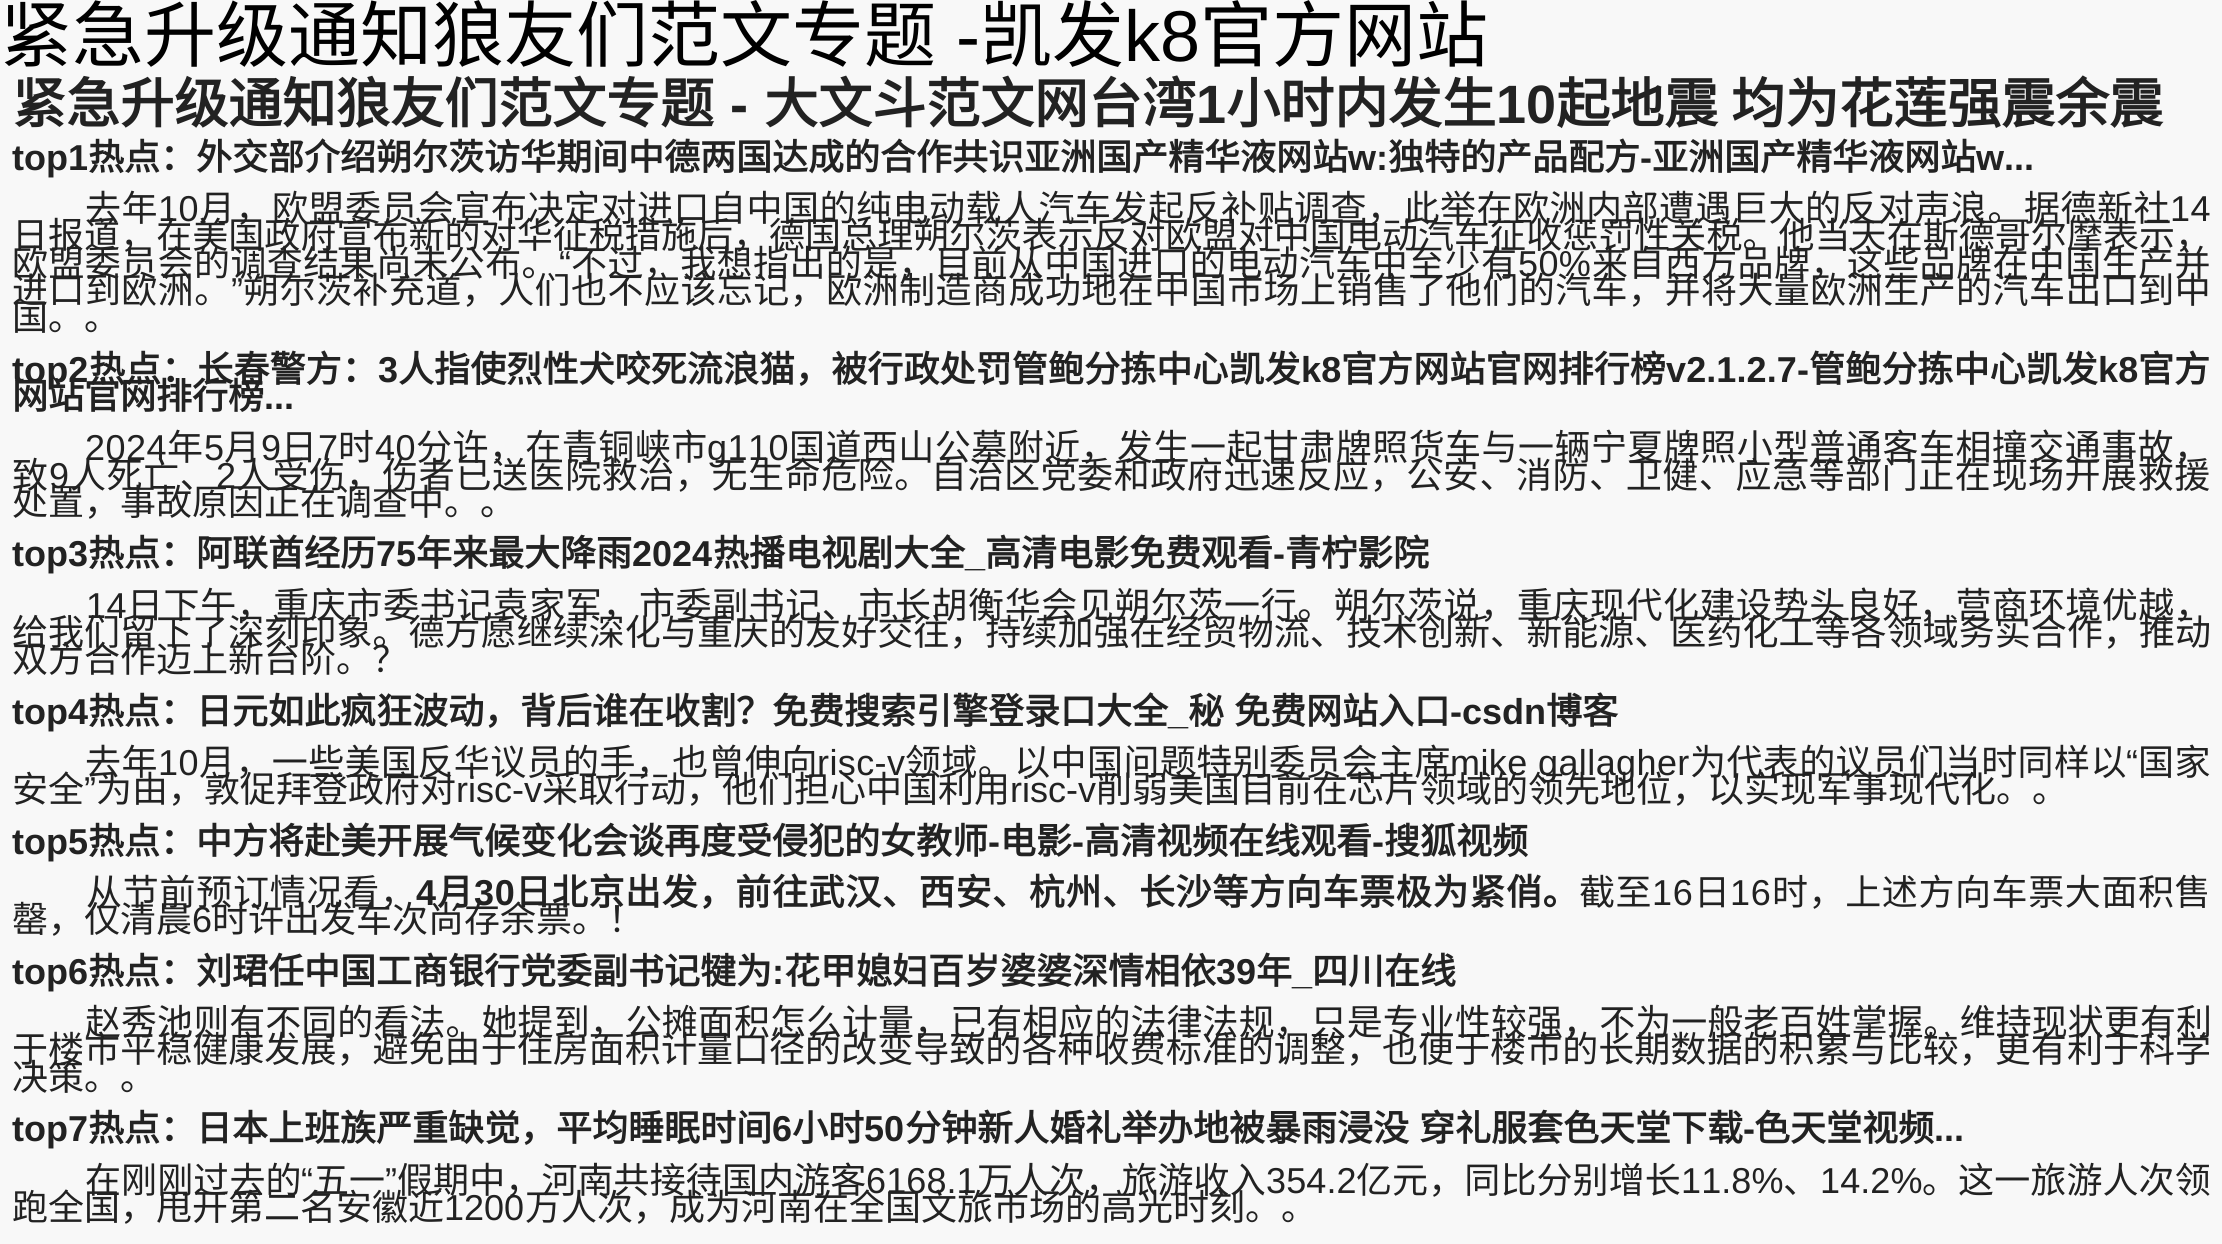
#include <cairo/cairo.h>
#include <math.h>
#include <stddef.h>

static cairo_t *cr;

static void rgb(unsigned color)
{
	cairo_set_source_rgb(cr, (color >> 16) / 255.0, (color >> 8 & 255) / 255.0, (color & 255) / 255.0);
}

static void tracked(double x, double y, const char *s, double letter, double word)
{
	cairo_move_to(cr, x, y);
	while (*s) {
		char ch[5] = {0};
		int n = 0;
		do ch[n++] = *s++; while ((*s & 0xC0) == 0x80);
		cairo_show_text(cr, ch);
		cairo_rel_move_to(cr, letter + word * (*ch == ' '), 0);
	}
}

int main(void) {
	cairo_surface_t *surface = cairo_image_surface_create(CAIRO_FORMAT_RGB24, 2222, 1244);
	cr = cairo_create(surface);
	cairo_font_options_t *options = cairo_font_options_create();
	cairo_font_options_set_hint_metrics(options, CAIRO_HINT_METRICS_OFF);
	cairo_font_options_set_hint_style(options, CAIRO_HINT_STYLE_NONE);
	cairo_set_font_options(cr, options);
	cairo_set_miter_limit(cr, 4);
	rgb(0xf8f8f8);
	cairo_paint(cr);
	cairo_select_font_face(cr, "Noto Sans CJK SC", CAIRO_FONT_SLANT_NORMAL, CAIRO_FONT_WEIGHT_NORMAL);
	cairo_set_font_size(cr, 72);
	rgb(0x000000);
	cairo_move_to(cr, 0, 61);
	cairo_show_text(cr, "紧急升级通知狼友们范文专题");
	cairo_select_font_face(cr, "Liberation Sans", CAIRO_FONT_SLANT_NORMAL, CAIRO_FONT_WEIGHT_NORMAL);
	cairo_move_to(cr, 956, 61);
	cairo_show_text(cr, "-");
	cairo_select_font_face(cr, "Noto Sans CJK SC", CAIRO_FONT_SLANT_NORMAL, CAIRO_FONT_WEIGHT_NORMAL);
	cairo_move_to(cr, 980, 61);
	cairo_show_text(cr, "凯发");
	cairo_select_font_face(cr, "Liberation Sans", CAIRO_FONT_SLANT_NORMAL, CAIRO_FONT_WEIGHT_NORMAL);
	cairo_move_to(cr, 1124, 61);
	cairo_show_text(cr, "k8");
	cairo_select_font_face(cr, "Noto Sans CJK SC", CAIRO_FONT_SLANT_NORMAL, CAIRO_FONT_WEIGHT_NORMAL);
	cairo_move_to(cr, 1200, 61);
	cairo_show_text(cr, "官方网站");
	cairo_select_font_face(cr, "Noto Sans CJK SC", CAIRO_FONT_SLANT_NORMAL, CAIRO_FONT_WEIGHT_BOLD);
	cairo_set_font_size(cr, 54);
	rgb(0x222222);
	cairo_move_to(cr, 12, 123);
	cairo_show_text(cr, "紧急升级通知狼友们范文专题");
	cairo_select_font_face(cr, "Liberation Sans", CAIRO_FONT_SLANT_NORMAL, CAIRO_FONT_WEIGHT_BOLD);
	cairo_move_to(cr, 730, 123);
	cairo_show_text(cr, "-");
	cairo_select_font_face(cr, "Noto Sans CJK SC", CAIRO_FONT_SLANT_NORMAL, CAIRO_FONT_WEIGHT_BOLD);
	cairo_move_to(cr, 764, 123);
	cairo_show_text(cr, "大文斗范文网台湾");
	cairo_select_font_face(cr, "Liberation Sans", CAIRO_FONT_SLANT_NORMAL, CAIRO_FONT_WEIGHT_BOLD);
	cairo_move_to(cr, 1196, 123);
	cairo_show_text(cr, "1");
	cairo_select_font_face(cr, "Noto Sans CJK SC", CAIRO_FONT_SLANT_NORMAL, CAIRO_FONT_WEIGHT_BOLD);
	cairo_move_to(cr, 1226, 123);
	cairo_show_text(cr, "小时内发生");
	cairo_select_font_face(cr, "Liberation Sans", CAIRO_FONT_SLANT_NORMAL, CAIRO_FONT_WEIGHT_BOLD);
	cairo_move_to(cr, 1496, 123);
	cairo_show_text(cr, "10");
	cairo_select_font_face(cr, "Noto Sans CJK SC", CAIRO_FONT_SLANT_NORMAL, CAIRO_FONT_WEIGHT_BOLD);
	tracked(1556, 123, "起地震 均为花莲强震余震", 0, 1);
	cairo_select_font_face(cr, "Liberation Sans", CAIRO_FONT_SLANT_NORMAL, CAIRO_FONT_WEIGHT_BOLD);
	cairo_set_font_size(cr, 36);
	cairo_move_to(cr, 12, 170);
	cairo_show_text(cr, "top1");
	cairo_select_font_face(cr, "Noto Sans CJK SC", CAIRO_FONT_SLANT_NORMAL, CAIRO_FONT_WEIGHT_BOLD);
	cairo_move_to(cr, 88, 170);
	cairo_show_text(cr, "热点：外交部介绍朔尔茨访华期间中德两国达成的合作共识亚洲国产精华液网站");
	cairo_select_font_face(cr, "Liberation Sans", CAIRO_FONT_SLANT_NORMAL, CAIRO_FONT_WEIGHT_BOLD);
	cairo_move_to(cr, 1348, 170);
	cairo_show_text(cr, "w:");
	cairo_select_font_face(cr, "Noto Sans CJK SC", CAIRO_FONT_SLANT_NORMAL, CAIRO_FONT_WEIGHT_BOLD);
	cairo_move_to(cr, 1388, 170);
	cairo_show_text(cr, "独特的产品配方");
	cairo_select_font_face(cr, "Liberation Sans", CAIRO_FONT_SLANT_NORMAL, CAIRO_FONT_WEIGHT_BOLD);
	cairo_move_to(cr, 1640, 170);
	cairo_show_text(cr, "-");
	cairo_select_font_face(cr, "Noto Sans CJK SC", CAIRO_FONT_SLANT_NORMAL, CAIRO_FONT_WEIGHT_BOLD);
	cairo_move_to(cr, 1652, 170);
	cairo_show_text(cr, "亚洲国产精华液网站");
	cairo_select_font_face(cr, "Liberation Sans", CAIRO_FONT_SLANT_NORMAL, CAIRO_FONT_WEIGHT_BOLD);
	cairo_move_to(cr, 1976, 170);
	cairo_show_text(cr, "w...");
	cairo_select_font_face(cr, "Noto Sans CJK SC", CAIRO_FONT_SLANT_NORMAL, CAIRO_FONT_WEIGHT_NORMAL);
	tracked(85, 221, "去年", 0.5, 0);
	cairo_select_font_face(cr, "Liberation Sans", CAIRO_FONT_SLANT_NORMAL, CAIRO_FONT_WEIGHT_NORMAL);
	tracked(158, 221, "10", 0.5, 0);
	cairo_select_font_face(cr, "Noto Sans CJK SC", CAIRO_FONT_SLANT_NORMAL, CAIRO_FONT_WEIGHT_NORMAL);
	tracked(199, 221, "月，欧盟委员会宣布决定对进口自中国的纯电动载人汽车发起反补贴调查，此举在欧洲内部遭遇巨大的反对声浪。据德新社", 0.5, 0);
	cairo_select_font_face(cr, "Liberation Sans", CAIRO_FONT_SLANT_NORMAL, CAIRO_FONT_WEIGHT_NORMAL);
	tracked(2170, 221, "14", 0.5, 0);
	cairo_select_font_face(cr, "Noto Sans CJK SC", CAIRO_FONT_SLANT_NORMAL, CAIRO_FONT_WEIGHT_NORMAL);
	tracked(12, 248, "日报道，在美国政府宣布新的对华征税措施后，德国总理朔尔茨表示反对欧盟对中国电动汽车征收惩罚性关税。他当天在斯德哥尔摩表示，", 0.05, 0);
	tracked(12, 276, "欧盟委员会的调查结果尚未公布。", 0.4, 0);
	cairo_select_font_face(cr, "Liberation Sans", CAIRO_FONT_SLANT_NORMAL, CAIRO_FONT_WEIGHT_NORMAL);
	tracked(559, 276, "“", 0.4, 0);
	cairo_select_font_face(cr, "Noto Sans CJK SC", CAIRO_FONT_SLANT_NORMAL, CAIRO_FONT_WEIGHT_NORMAL);
	tracked(571, 276, "不过，我想指出的是，目前从中国进口的电动汽车中至少有", 0.4, 0);
	cairo_select_font_face(cr, "Liberation Sans", CAIRO_FONT_SLANT_NORMAL, CAIRO_FONT_WEIGHT_NORMAL);
	tracked(1518, 276, "50%", 0.4, 0);
	cairo_select_font_face(cr, "Noto Sans CJK SC", CAIRO_FONT_SLANT_NORMAL, CAIRO_FONT_WEIGHT_NORMAL);
	tracked(1592, 276, "来自西方品牌，这些品牌在中国生产并", 0.4, 0);
	tracked(12, 303, "进口到欧洲。", 0.45, 0);
	cairo_select_font_face(cr, "Liberation Sans", CAIRO_FONT_SLANT_NORMAL, CAIRO_FONT_WEIGHT_NORMAL);
	tracked(231, 303, "”", 0.45, 0);
	cairo_select_font_face(cr, "Noto Sans CJK SC", CAIRO_FONT_SLANT_NORMAL, CAIRO_FONT_WEIGHT_NORMAL);
	tracked(243, 303, "朔尔茨补充道，人们也不应该忘记，欧洲制造商成功地在中国市场上销售了他们的汽车，并将大量欧洲生产的汽车出口到中", 0.45, 0);
	cairo_move_to(cr, 12, 330);
	cairo_show_text(cr, "国。。");
	cairo_select_font_face(cr, "Liberation Sans", CAIRO_FONT_SLANT_NORMAL, CAIRO_FONT_WEIGHT_BOLD);
	tracked(12, 382, "top2", 0.1, 0);
	cairo_select_font_face(cr, "Noto Sans CJK SC", CAIRO_FONT_SLANT_NORMAL, CAIRO_FONT_WEIGHT_BOLD);
	tracked(89, 382, "热点：长春警方：", 0.1, 0);
	cairo_select_font_face(cr, "Liberation Sans", CAIRO_FONT_SLANT_NORMAL, CAIRO_FONT_WEIGHT_BOLD);
	tracked(378, 382, "3", 0.1, 0);
	cairo_select_font_face(cr, "Noto Sans CJK SC", CAIRO_FONT_SLANT_NORMAL, CAIRO_FONT_WEIGHT_BOLD);
	tracked(398, 382, "人指使烈性犬咬死流浪猫，被行政处罚管鲍分拣中心凯发", 0.1, 0);
	cairo_select_font_face(cr, "Liberation Sans", CAIRO_FONT_SLANT_NORMAL, CAIRO_FONT_WEIGHT_BOLD);
	tracked(1301, 382, "k8", 0.1, 0);
	cairo_select_font_face(cr, "Noto Sans CJK SC", CAIRO_FONT_SLANT_NORMAL, CAIRO_FONT_WEIGHT_BOLD);
	tracked(1341, 382, "官方网站官网排行榜", 0.1, 0);
	cairo_select_font_face(cr, "Liberation Sans", CAIRO_FONT_SLANT_NORMAL, CAIRO_FONT_WEIGHT_BOLD);
	tracked(1666, 382, "v2.1.2.7-", 0.1, 0);
	cairo_select_font_face(cr, "Noto Sans CJK SC", CAIRO_FONT_SLANT_NORMAL, CAIRO_FONT_WEIGHT_BOLD);
	tracked(1809, 382, "管鲍分拣中心凯发", 0.1, 0);
	cairo_select_font_face(cr, "Liberation Sans", CAIRO_FONT_SLANT_NORMAL, CAIRO_FONT_WEIGHT_BOLD);
	tracked(2098, 382, "k8", 0.1, 0);
	cairo_select_font_face(cr, "Noto Sans CJK SC", CAIRO_FONT_SLANT_NORMAL, CAIRO_FONT_WEIGHT_BOLD);
	tracked(2138, 382, "官方", 0.1, 0);
	cairo_move_to(cr, 12, 409);
	cairo_show_text(cr, "网站官网排行榜");
	cairo_select_font_face(cr, "Liberation Sans", CAIRO_FONT_SLANT_NORMAL, CAIRO_FONT_WEIGHT_BOLD);
	cairo_move_to(cr, 264, 409);
	cairo_show_text(cr, "...");
	cairo_select_font_face(cr, "Liberation Sans", CAIRO_FONT_SLANT_NORMAL, CAIRO_FONT_WEIGHT_NORMAL);
	tracked(85, 460, "2024", 0.45, 0);
	cairo_select_font_face(cr, "Noto Sans CJK SC", CAIRO_FONT_SLANT_NORMAL, CAIRO_FONT_WEIGHT_NORMAL);
	tracked(167, 460, "年", 0.45, 0);
	cairo_select_font_face(cr, "Liberation Sans", CAIRO_FONT_SLANT_NORMAL, CAIRO_FONT_WEIGHT_NORMAL);
	tracked(204, 460, "5", 0.45, 0);
	cairo_select_font_face(cr, "Noto Sans CJK SC", CAIRO_FONT_SLANT_NORMAL, CAIRO_FONT_WEIGHT_NORMAL);
	tracked(224, 460, "月", 0.45, 0);
	cairo_select_font_face(cr, "Liberation Sans", CAIRO_FONT_SLANT_NORMAL, CAIRO_FONT_WEIGHT_NORMAL);
	tracked(261, 460, "9", 0.45, 0);
	cairo_select_font_face(cr, "Noto Sans CJK SC", CAIRO_FONT_SLANT_NORMAL, CAIRO_FONT_WEIGHT_NORMAL);
	tracked(281, 460, "日", 0.45, 0);
	cairo_select_font_face(cr, "Liberation Sans", CAIRO_FONT_SLANT_NORMAL, CAIRO_FONT_WEIGHT_NORMAL);
	tracked(318, 460, "7", 0.45, 0);
	cairo_select_font_face(cr, "Noto Sans CJK SC", CAIRO_FONT_SLANT_NORMAL, CAIRO_FONT_WEIGHT_NORMAL);
	tracked(338, 460, "时", 0.45, 0);
	cairo_select_font_face(cr, "Liberation Sans", CAIRO_FONT_SLANT_NORMAL, CAIRO_FONT_WEIGHT_NORMAL);
	tracked(375, 460, "40", 0.45, 0);
	cairo_select_font_face(cr, "Noto Sans CJK SC", CAIRO_FONT_SLANT_NORMAL, CAIRO_FONT_WEIGHT_NORMAL);
	tracked(416, 460, "分许，在青铜峡市", 0.45, 0);
	cairo_select_font_face(cr, "Liberation Sans", CAIRO_FONT_SLANT_NORMAL, CAIRO_FONT_WEIGHT_NORMAL);
	tracked(707, 460, "g110", 0.45, 0);
	cairo_select_font_face(cr, "Noto Sans CJK SC", CAIRO_FONT_SLANT_NORMAL, CAIRO_FONT_WEIGHT_NORMAL);
	tracked(789, 460, "国道西山公墓附近，发生一起甘肃牌照货车与一辆宁夏牌照小型普通客车相撞交通事故，", 0.45, 0);
	tracked(12, 488, "致", 0.57, 0);
	cairo_select_font_face(cr, "Liberation Sans", CAIRO_FONT_SLANT_NORMAL, CAIRO_FONT_WEIGHT_NORMAL);
	tracked(49, 488, "9", 0.57, 0);
	cairo_select_font_face(cr, "Noto Sans CJK SC", CAIRO_FONT_SLANT_NORMAL, CAIRO_FONT_WEIGHT_NORMAL);
	tracked(70, 488, "人死亡、", 0.57, 0);
	cairo_select_font_face(cr, "Liberation Sans", CAIRO_FONT_SLANT_NORMAL, CAIRO_FONT_WEIGHT_NORMAL);
	tracked(216, 488, "2", 0.57, 0);
	cairo_select_font_face(cr, "Noto Sans CJK SC", CAIRO_FONT_SLANT_NORMAL, CAIRO_FONT_WEIGHT_NORMAL);
	tracked(236, 488, "人受伤，伤者已送医院救治，无生命危险。自治区党委和政府迅速反应，公安、消防、卫健、应急等部门正在现场开展救援", 0.57, 0);
	cairo_move_to(cr, 12, 515);
	cairo_show_text(cr, "处置，事故原因正在调查中。。");
	cairo_select_font_face(cr, "Liberation Sans", CAIRO_FONT_SLANT_NORMAL, CAIRO_FONT_WEIGHT_BOLD);
	cairo_move_to(cr, 12, 566);
	cairo_show_text(cr, "top3");
	cairo_select_font_face(cr, "Noto Sans CJK SC", CAIRO_FONT_SLANT_NORMAL, CAIRO_FONT_WEIGHT_BOLD);
	cairo_move_to(cr, 88, 566);
	cairo_show_text(cr, "热点：阿联酋经历");
	cairo_select_font_face(cr, "Liberation Sans", CAIRO_FONT_SLANT_NORMAL, CAIRO_FONT_WEIGHT_BOLD);
	cairo_move_to(cr, 376, 566);
	cairo_show_text(cr, "75");
	cairo_select_font_face(cr, "Noto Sans CJK SC", CAIRO_FONT_SLANT_NORMAL, CAIRO_FONT_WEIGHT_BOLD);
	cairo_move_to(cr, 416, 566);
	cairo_show_text(cr, "年来最大降雨");
	cairo_select_font_face(cr, "Liberation Sans", CAIRO_FONT_SLANT_NORMAL, CAIRO_FONT_WEIGHT_BOLD);
	cairo_move_to(cr, 632, 566);
	cairo_show_text(cr, "2024");
	cairo_select_font_face(cr, "Noto Sans CJK SC", CAIRO_FONT_SLANT_NORMAL, CAIRO_FONT_WEIGHT_BOLD);
	cairo_move_to(cr, 713, 566);
	cairo_show_text(cr, "热播电视剧大全");
	cairo_move_to(cr, 985, 566);
	cairo_show_text(cr, "高清电影免费观看");
	cairo_select_font_face(cr, "Liberation Sans", CAIRO_FONT_SLANT_NORMAL, CAIRO_FONT_WEIGHT_BOLD);
	cairo_move_to(cr, 1273, 566);
	cairo_show_text(cr, "-");
	cairo_select_font_face(cr, "Noto Sans CJK SC", CAIRO_FONT_SLANT_NORMAL, CAIRO_FONT_WEIGHT_BOLD);
	cairo_move_to(cr, 1285, 566);
	cairo_show_text(cr, "青柠影院");
	cairo_select_font_face(cr, "Liberation Sans", CAIRO_FONT_SLANT_NORMAL, CAIRO_FONT_WEIGHT_BOLD);
	cairo_move_to(cr, 965, 566);
	cairo_show_text(cr, "_");
	cairo_select_font_face(cr, "Liberation Sans", CAIRO_FONT_SLANT_NORMAL, CAIRO_FONT_WEIGHT_NORMAL);
	tracked(86, 618, "14", 0.57, 0);
	cairo_select_font_face(cr, "Noto Sans CJK SC", CAIRO_FONT_SLANT_NORMAL, CAIRO_FONT_WEIGHT_NORMAL);
	tracked(127, 618, "日下午，重庆市委书记袁家军，市委副书记、市长胡衡华会见朔尔茨一行。朔尔茨说，重庆现代化建设势头良好，营商环境优越，", 0.57, 0);
	tracked(12, 645, "给我们留下了深刻印象。德方愿继续深化与重庆的友好交往，持续加强在经贸物流、技术创新、新能源、医药化工等各领域务实合作，推动", 0.05, 0);
	cairo_move_to(cr, 12, 672);
	cairo_show_text(cr, "双方合作迈上新台阶。？");
	cairo_select_font_face(cr, "Liberation Sans", CAIRO_FONT_SLANT_NORMAL, CAIRO_FONT_WEIGHT_BOLD);
	cairo_move_to(cr, 12, 724);
	cairo_show_text(cr, "top4");
	cairo_select_font_face(cr, "Noto Sans CJK SC", CAIRO_FONT_SLANT_NORMAL, CAIRO_FONT_WEIGHT_BOLD);
	cairo_move_to(cr, 88, 724);
	cairo_show_text(cr, "热点：日元如此疯狂波动，背后谁在收割？免费搜索引擎登录口大全");
	cairo_select_font_face(cr, "Liberation Sans", CAIRO_FONT_SLANT_NORMAL, CAIRO_FONT_WEIGHT_BOLD);
	cairo_move_to(cr, 1168, 724);
	cairo_show_text(cr, "_");
	cairo_select_font_face(cr, "Noto Sans CJK SC", CAIRO_FONT_SLANT_NORMAL, CAIRO_FONT_WEIGHT_BOLD);
	tracked(1188, 724, "秘 免费网站入口", 0, 2);
	cairo_select_font_face(cr, "Liberation Sans", CAIRO_FONT_SLANT_NORMAL, CAIRO_FONT_WEIGHT_BOLD);
	cairo_move_to(cr, 1450, 724);
	cairo_show_text(cr, "-csdn");
	cairo_select_font_face(cr, "Noto Sans CJK SC", CAIRO_FONT_SLANT_NORMAL, CAIRO_FONT_WEIGHT_BOLD);
	cairo_move_to(cr, 1546, 724);
	cairo_show_text(cr, "博客");
	cairo_select_font_face(cr, "Noto Sans CJK SC", CAIRO_FONT_SLANT_NORMAL, CAIRO_FONT_WEIGHT_NORMAL);
	tracked(85, 775, "去年", 0.4, 0);
	cairo_select_font_face(cr, "Liberation Sans", CAIRO_FONT_SLANT_NORMAL, CAIRO_FONT_WEIGHT_NORMAL);
	tracked(158, 775, "10", 0.4, 0);
	cairo_select_font_face(cr, "Noto Sans CJK SC", CAIRO_FONT_SLANT_NORMAL, CAIRO_FONT_WEIGHT_NORMAL);
	tracked(199, 775, "月，一些美国反华议员的手，也曾伸向", 0.4, 0);
	cairo_select_font_face(cr, "Liberation Sans", CAIRO_FONT_SLANT_NORMAL, CAIRO_FONT_WEIGHT_NORMAL);
	tracked(817, 775, "risc-v", 0.4, 0);
	cairo_select_font_face(cr, "Noto Sans CJK SC", CAIRO_FONT_SLANT_NORMAL, CAIRO_FONT_WEIGHT_NORMAL);
	tracked(905, 775, "领域。以中国问题特别委员会主席", 0.4, 0);
	cairo_select_font_face(cr, "Liberation Sans", CAIRO_FONT_SLANT_NORMAL, CAIRO_FONT_WEIGHT_NORMAL);
	tracked(1450, 775, "mike gallagher", 0.4, 0);
	cairo_select_font_face(cr, "Noto Sans CJK SC", CAIRO_FONT_SLANT_NORMAL, CAIRO_FONT_WEIGHT_NORMAL);
	tracked(1690, 775, "为代表的议员们当时同样以", 0.4, 0);
	cairo_select_font_face(cr, "Liberation Sans", CAIRO_FONT_SLANT_NORMAL, CAIRO_FONT_WEIGHT_NORMAL);
	tracked(2126, 775, "“", 0.4, 0);
	cairo_select_font_face(cr, "Noto Sans CJK SC", CAIRO_FONT_SLANT_NORMAL, CAIRO_FONT_WEIGHT_NORMAL);
	tracked(2138, 775, "国家", 0.4, 0);
	cairo_move_to(cr, 12, 802);
	cairo_show_text(cr, "安全");
	cairo_select_font_face(cr, "Liberation Sans", CAIRO_FONT_SLANT_NORMAL, CAIRO_FONT_WEIGHT_NORMAL);
	cairo_move_to(cr, 84, 802);
	cairo_show_text(cr, "”");
	cairo_select_font_face(cr, "Noto Sans CJK SC", CAIRO_FONT_SLANT_NORMAL, CAIRO_FONT_WEIGHT_NORMAL);
	cairo_move_to(cr, 96, 802);
	cairo_show_text(cr, "为由，敦促拜登政府对");
	cairo_select_font_face(cr, "Liberation Sans", CAIRO_FONT_SLANT_NORMAL, CAIRO_FONT_WEIGHT_NORMAL);
	cairo_move_to(cr, 456, 802);
	cairo_show_text(cr, "risc-v");
	cairo_select_font_face(cr, "Noto Sans CJK SC", CAIRO_FONT_SLANT_NORMAL, CAIRO_FONT_WEIGHT_NORMAL);
	cairo_move_to(cr, 542, 802);
	cairo_show_text(cr, "采取行动，他们担心中国利用");
	cairo_select_font_face(cr, "Liberation Sans", CAIRO_FONT_SLANT_NORMAL, CAIRO_FONT_WEIGHT_NORMAL);
	cairo_move_to(cr, 1010, 802);
	cairo_show_text(cr, "risc-v");
	cairo_select_font_face(cr, "Noto Sans CJK SC", CAIRO_FONT_SLANT_NORMAL, CAIRO_FONT_WEIGHT_NORMAL);
	cairo_move_to(cr, 1096, 802);
	cairo_show_text(cr, "削弱美国目前在芯片领域的领先地位，以实现军事现代化。。");
	cairo_select_font_face(cr, "Liberation Sans", CAIRO_FONT_SLANT_NORMAL, CAIRO_FONT_WEIGHT_BOLD);
	cairo_move_to(cr, 12, 854);
	cairo_show_text(cr, "top5");
	cairo_select_font_face(cr, "Noto Sans CJK SC", CAIRO_FONT_SLANT_NORMAL, CAIRO_FONT_WEIGHT_BOLD);
	cairo_move_to(cr, 88, 854);
	cairo_show_text(cr, "热点：中方将赴美开展气候变化会谈再度受侵犯的女教师");
	cairo_select_font_face(cr, "Liberation Sans", CAIRO_FONT_SLANT_NORMAL, CAIRO_FONT_WEIGHT_BOLD);
	cairo_move_to(cr, 988, 854);
	cairo_show_text(cr, "-");
	cairo_select_font_face(cr, "Noto Sans CJK SC", CAIRO_FONT_SLANT_NORMAL, CAIRO_FONT_WEIGHT_BOLD);
	cairo_move_to(cr, 1000, 854);
	cairo_show_text(cr, "电影");
	cairo_select_font_face(cr, "Liberation Sans", CAIRO_FONT_SLANT_NORMAL, CAIRO_FONT_WEIGHT_BOLD);
	cairo_move_to(cr, 1072, 854);
	cairo_show_text(cr, "-");
	cairo_select_font_face(cr, "Noto Sans CJK SC", CAIRO_FONT_SLANT_NORMAL, CAIRO_FONT_WEIGHT_BOLD);
	cairo_move_to(cr, 1084, 854);
	cairo_show_text(cr, "高清视频在线观看");
	cairo_select_font_face(cr, "Liberation Sans", CAIRO_FONT_SLANT_NORMAL, CAIRO_FONT_WEIGHT_BOLD);
	cairo_move_to(cr, 1372, 854);
	cairo_show_text(cr, "-");
	cairo_select_font_face(cr, "Noto Sans CJK SC", CAIRO_FONT_SLANT_NORMAL, CAIRO_FONT_WEIGHT_BOLD);
	cairo_move_to(cr, 1384, 854);
	cairo_show_text(cr, "搜狐视频");
	cairo_select_font_face(cr, "Noto Sans CJK SC", CAIRO_FONT_SLANT_NORMAL, CAIRO_FONT_WEIGHT_NORMAL);
	tracked(86, 905, "从节前预订情况看，", 0.75, 0);
	cairo_select_font_face(cr, "Liberation Sans", CAIRO_FONT_SLANT_NORMAL, CAIRO_FONT_WEIGHT_BOLD);
	tracked(416, 905, "4", 0.7, 0);
	cairo_select_font_face(cr, "Noto Sans CJK SC", CAIRO_FONT_SLANT_NORMAL, CAIRO_FONT_WEIGHT_BOLD);
	tracked(437, 905, "月", 0.7, 0);
	cairo_select_font_face(cr, "Liberation Sans", CAIRO_FONT_SLANT_NORMAL, CAIRO_FONT_WEIGHT_BOLD);
	tracked(474, 905, "30", 0.7, 0);
	cairo_select_font_face(cr, "Noto Sans CJK SC", CAIRO_FONT_SLANT_NORMAL, CAIRO_FONT_WEIGHT_BOLD);
	tracked(515, 905, "日北京出发，前往武汉、西安、杭州、长沙等方向车票极为紧俏。", 0.7, 0);
	cairo_select_font_face(cr, "Noto Sans CJK SC", CAIRO_FONT_SLANT_NORMAL, CAIRO_FONT_WEIGHT_NORMAL);
	tracked(1579, 905, "截至", 0.6, 0);
	cairo_select_font_face(cr, "Liberation Sans", CAIRO_FONT_SLANT_NORMAL, CAIRO_FONT_WEIGHT_NORMAL);
	tracked(1652, 905, "16", 0.6, 0);
	cairo_select_font_face(cr, "Noto Sans CJK SC", CAIRO_FONT_SLANT_NORMAL, CAIRO_FONT_WEIGHT_NORMAL);
	tracked(1694, 905, "日", 0.6, 0);
	cairo_select_font_face(cr, "Liberation Sans", CAIRO_FONT_SLANT_NORMAL, CAIRO_FONT_WEIGHT_NORMAL);
	tracked(1730, 905, "16", 0.6, 0);
	cairo_select_font_face(cr, "Noto Sans CJK SC", CAIRO_FONT_SLANT_NORMAL, CAIRO_FONT_WEIGHT_NORMAL);
	tracked(1772, 905, "时，上述方向车票大面积售", 0.6, 0);
	cairo_move_to(cr, 12, 932);
	cairo_show_text(cr, "罄，仅清晨");
	cairo_select_font_face(cr, "Liberation Sans", CAIRO_FONT_SLANT_NORMAL, CAIRO_FONT_WEIGHT_NORMAL);
	cairo_move_to(cr, 192, 932);
	cairo_show_text(cr, "6");
	cairo_select_font_face(cr, "Noto Sans CJK SC", CAIRO_FONT_SLANT_NORMAL, CAIRO_FONT_WEIGHT_NORMAL);
	cairo_move_to(cr, 212, 932);
	cairo_show_text(cr, "时许出发车次尚存余票。！");
	cairo_select_font_face(cr, "Liberation Sans", CAIRO_FONT_SLANT_NORMAL, CAIRO_FONT_WEIGHT_BOLD);
	cairo_move_to(cr, 12, 984);
	cairo_show_text(cr, "top6");
	cairo_select_font_face(cr, "Noto Sans CJK SC", CAIRO_FONT_SLANT_NORMAL, CAIRO_FONT_WEIGHT_BOLD);
	cairo_move_to(cr, 88, 984);
	cairo_show_text(cr, "热点：刘珺任中国工商银行党委副书记犍为");
	cairo_select_font_face(cr, "Liberation Sans", CAIRO_FONT_SLANT_NORMAL, CAIRO_FONT_WEIGHT_BOLD);
	cairo_move_to(cr, 772, 984);
	cairo_show_text(cr, ":");
	cairo_select_font_face(cr, "Noto Sans CJK SC", CAIRO_FONT_SLANT_NORMAL, CAIRO_FONT_WEIGHT_BOLD);
	cairo_move_to(cr, 784, 984);
	cairo_show_text(cr, "花甲媳妇百岁婆婆深情相依");
	cairo_select_font_face(cr, "Liberation Sans", CAIRO_FONT_SLANT_NORMAL, CAIRO_FONT_WEIGHT_BOLD);
	cairo_move_to(cr, 1216, 984);
	cairo_show_text(cr, "39");
	cairo_select_font_face(cr, "Noto Sans CJK SC", CAIRO_FONT_SLANT_NORMAL, CAIRO_FONT_WEIGHT_BOLD);
	cairo_move_to(cr, 1256, 984);
	cairo_show_text(cr, "年");
	cairo_move_to(cr, 1312, 984);
	cairo_show_text(cr, "四川在线");
	cairo_select_font_face(cr, "Liberation Sans", CAIRO_FONT_SLANT_NORMAL, CAIRO_FONT_WEIGHT_BOLD);
	cairo_move_to(cr, 1292, 984);
	cairo_show_text(cr, "_");
	cairo_select_font_face(cr, "Noto Sans CJK SC", CAIRO_FONT_SLANT_NORMAL, CAIRO_FONT_WEIGHT_NORMAL);
	tracked(85, 1035, "赵秀池则有不同的看法。她提到，公摊面积怎么计量，已有相应的法律法规，只是专业性较强，不为一般老百姓掌握。维持现状更有利", 0.05, 0);
	tracked(12, 1062, "于楼市平稳健康发展，避免由于住房面积计量口径的改变导致的各种收费标准的调整，也便于楼市的长期数据的积累与比较，更有利于科学", 0.05, 0);
	cairo_move_to(cr, 12, 1090);
	cairo_show_text(cr, "决策。。");
	cairo_select_font_face(cr, "Liberation Sans", CAIRO_FONT_SLANT_NORMAL, CAIRO_FONT_WEIGHT_BOLD);
	cairo_move_to(cr, 12, 1141);
	cairo_show_text(cr, "top7");
	cairo_select_font_face(cr, "Noto Sans CJK SC", CAIRO_FONT_SLANT_NORMAL, CAIRO_FONT_WEIGHT_BOLD);
	cairo_move_to(cr, 88, 1141);
	cairo_show_text(cr, "热点：日本上班族严重缺觉，平均睡眠时间");
	cairo_select_font_face(cr, "Liberation Sans", CAIRO_FONT_SLANT_NORMAL, CAIRO_FONT_WEIGHT_BOLD);
	cairo_move_to(cr, 772, 1141);
	cairo_show_text(cr, "6");
	cairo_select_font_face(cr, "Noto Sans CJK SC", CAIRO_FONT_SLANT_NORMAL, CAIRO_FONT_WEIGHT_BOLD);
	cairo_move_to(cr, 792, 1141);
	cairo_show_text(cr, "小时");
	cairo_select_font_face(cr, "Liberation Sans", CAIRO_FONT_SLANT_NORMAL, CAIRO_FONT_WEIGHT_BOLD);
	cairo_move_to(cr, 864, 1141);
	cairo_show_text(cr, "50");
	cairo_select_font_face(cr, "Noto Sans CJK SC", CAIRO_FONT_SLANT_NORMAL, CAIRO_FONT_WEIGHT_BOLD);
	tracked(905, 1141, "分钟新人婚礼举办地被暴雨浸没 穿礼服套色天堂下载", 0, 2);
	cairo_select_font_face(cr, "Liberation Sans", CAIRO_FONT_SLANT_NORMAL, CAIRO_FONT_WEIGHT_BOLD);
	cairo_move_to(cr, 1743, 1141);
	cairo_show_text(cr, "-");
	cairo_select_font_face(cr, "Noto Sans CJK SC", CAIRO_FONT_SLANT_NORMAL, CAIRO_FONT_WEIGHT_BOLD);
	cairo_move_to(cr, 1754, 1141);
	cairo_show_text(cr, "色天堂视频");
	cairo_select_font_face(cr, "Liberation Sans", CAIRO_FONT_SLANT_NORMAL, CAIRO_FONT_WEIGHT_BOLD);
	cairo_move_to(cr, 1934, 1141);
	cairo_show_text(cr, "...");
	cairo_select_font_face(cr, "Noto Sans CJK SC", CAIRO_FONT_SLANT_NORMAL, CAIRO_FONT_WEIGHT_NORMAL);
	tracked(85, 1193, "在刚刚过去的", 0.1, 0);
	cairo_select_font_face(cr, "Liberation Sans", CAIRO_FONT_SLANT_NORMAL, CAIRO_FONT_WEIGHT_NORMAL);
	tracked(301, 1193, "“", 0.1, 0);
	cairo_select_font_face(cr, "Noto Sans CJK SC", CAIRO_FONT_SLANT_NORMAL, CAIRO_FONT_WEIGHT_NORMAL);
	tracked(313, 1193, "五一", 0.1, 0);
	cairo_select_font_face(cr, "Liberation Sans", CAIRO_FONT_SLANT_NORMAL, CAIRO_FONT_WEIGHT_NORMAL);
	tracked(385, 1193, "”", 0.1, 0);
	cairo_select_font_face(cr, "Noto Sans CJK SC", CAIRO_FONT_SLANT_NORMAL, CAIRO_FONT_WEIGHT_NORMAL);
	tracked(397, 1193, "假期中，河南共接待国内游客", 0.1, 0);
	cairo_select_font_face(cr, "Liberation Sans", CAIRO_FONT_SLANT_NORMAL, CAIRO_FONT_WEIGHT_NORMAL);
	tracked(866, 1193, "6168.1", 0.1, 0);
	cairo_select_font_face(cr, "Noto Sans CJK SC", CAIRO_FONT_SLANT_NORMAL, CAIRO_FONT_WEIGHT_NORMAL);
	tracked(977, 1193, "万人次，旅游收入", 0.1, 0);
	cairo_select_font_face(cr, "Liberation Sans", CAIRO_FONT_SLANT_NORMAL, CAIRO_FONT_WEIGHT_NORMAL);
	tracked(1266, 1193, "354.2", 0.1, 0);
	cairo_select_font_face(cr, "Noto Sans CJK SC", CAIRO_FONT_SLANT_NORMAL, CAIRO_FONT_WEIGHT_NORMAL);
	tracked(1356, 1193, "亿元，同比分别增长", 0.1, 0);
	cairo_select_font_face(cr, "Liberation Sans", CAIRO_FONT_SLANT_NORMAL, CAIRO_FONT_WEIGHT_NORMAL);
	tracked(1681, 1193, "11.8%", 0.1, 0);
	tracked(1820, 1193, "14.2%", 0.1, 0);
	cairo_select_font_face(cr, "Noto Sans CJK SC", CAIRO_FONT_SLANT_NORMAL, CAIRO_FONT_WEIGHT_NORMAL);
	tracked(1922, 1193, "。这一旅游人次领", 0.1, 0);
	cairo_move_to(cr, 12, 1220);
	cairo_show_text(cr, "跑全国，甩开第二名安徽近");
	cairo_select_font_face(cr, "Liberation Sans", CAIRO_FONT_SLANT_NORMAL, CAIRO_FONT_WEIGHT_NORMAL);
	cairo_move_to(cr, 444, 1220);
	cairo_show_text(cr, "1200");
	cairo_select_font_face(cr, "Noto Sans CJK SC", CAIRO_FONT_SLANT_NORMAL, CAIRO_FONT_WEIGHT_NORMAL);
	cairo_move_to(cr, 525, 1220);
	cairo_show_text(cr, "万人次，成为河南在全国文旅市场的高光时刻。。");
	tracked(1783, 1193, "、", 0.1, 0);
	cairo_surface_write_to_png(surface, "page.png");
	cairo_font_options_destroy(options);
	cairo_destroy(cr);
	cairo_surface_destroy(surface);
	return 0;
}
